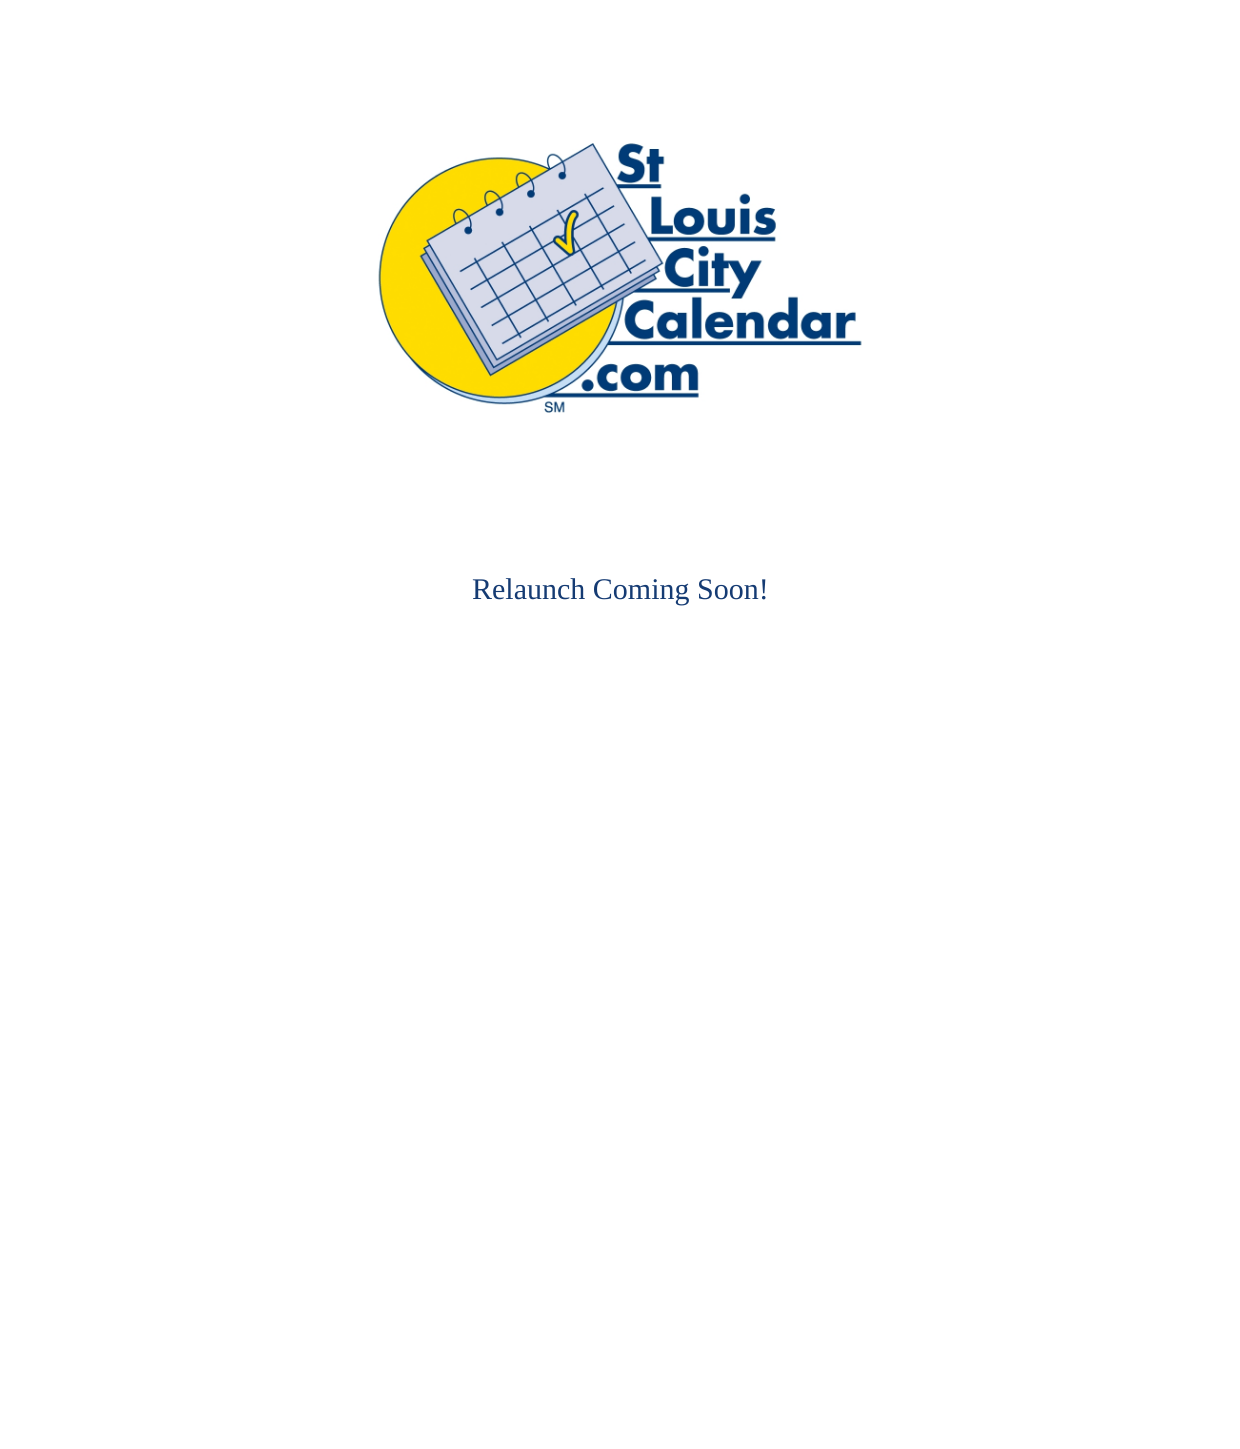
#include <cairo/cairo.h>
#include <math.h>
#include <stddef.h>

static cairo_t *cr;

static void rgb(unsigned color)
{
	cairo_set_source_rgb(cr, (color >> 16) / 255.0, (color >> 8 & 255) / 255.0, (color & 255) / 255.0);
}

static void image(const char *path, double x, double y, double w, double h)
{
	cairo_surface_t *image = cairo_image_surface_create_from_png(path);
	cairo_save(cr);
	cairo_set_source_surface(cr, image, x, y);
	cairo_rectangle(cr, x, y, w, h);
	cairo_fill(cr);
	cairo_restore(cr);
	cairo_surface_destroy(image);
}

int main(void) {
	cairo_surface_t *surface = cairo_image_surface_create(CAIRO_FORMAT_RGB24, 1240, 1449);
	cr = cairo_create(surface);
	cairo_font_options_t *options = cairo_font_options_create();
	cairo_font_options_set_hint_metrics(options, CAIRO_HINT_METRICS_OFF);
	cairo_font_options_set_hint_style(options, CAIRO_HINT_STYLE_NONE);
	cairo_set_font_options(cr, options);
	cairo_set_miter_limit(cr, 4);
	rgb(0xffffff);
	cairo_paint(cr);
	image("img/1.png", 378, 143, 484, 270);
	cairo_select_font_face(cr, "Liberation Serif", CAIRO_FONT_SLANT_NORMAL, CAIRO_FONT_WEIGHT_NORMAL);
	cairo_set_font_size(cr, 30);
	rgb(0x153b73);
	cairo_move_to(cr, 472, 599);
	cairo_show_text(cr, "Relaunch Coming Soon!");
	cairo_surface_write_to_png(surface, "page.png");
	cairo_font_options_destroy(options);
	cairo_destroy(cr);
	cairo_surface_destroy(surface);
	return 0;
}
